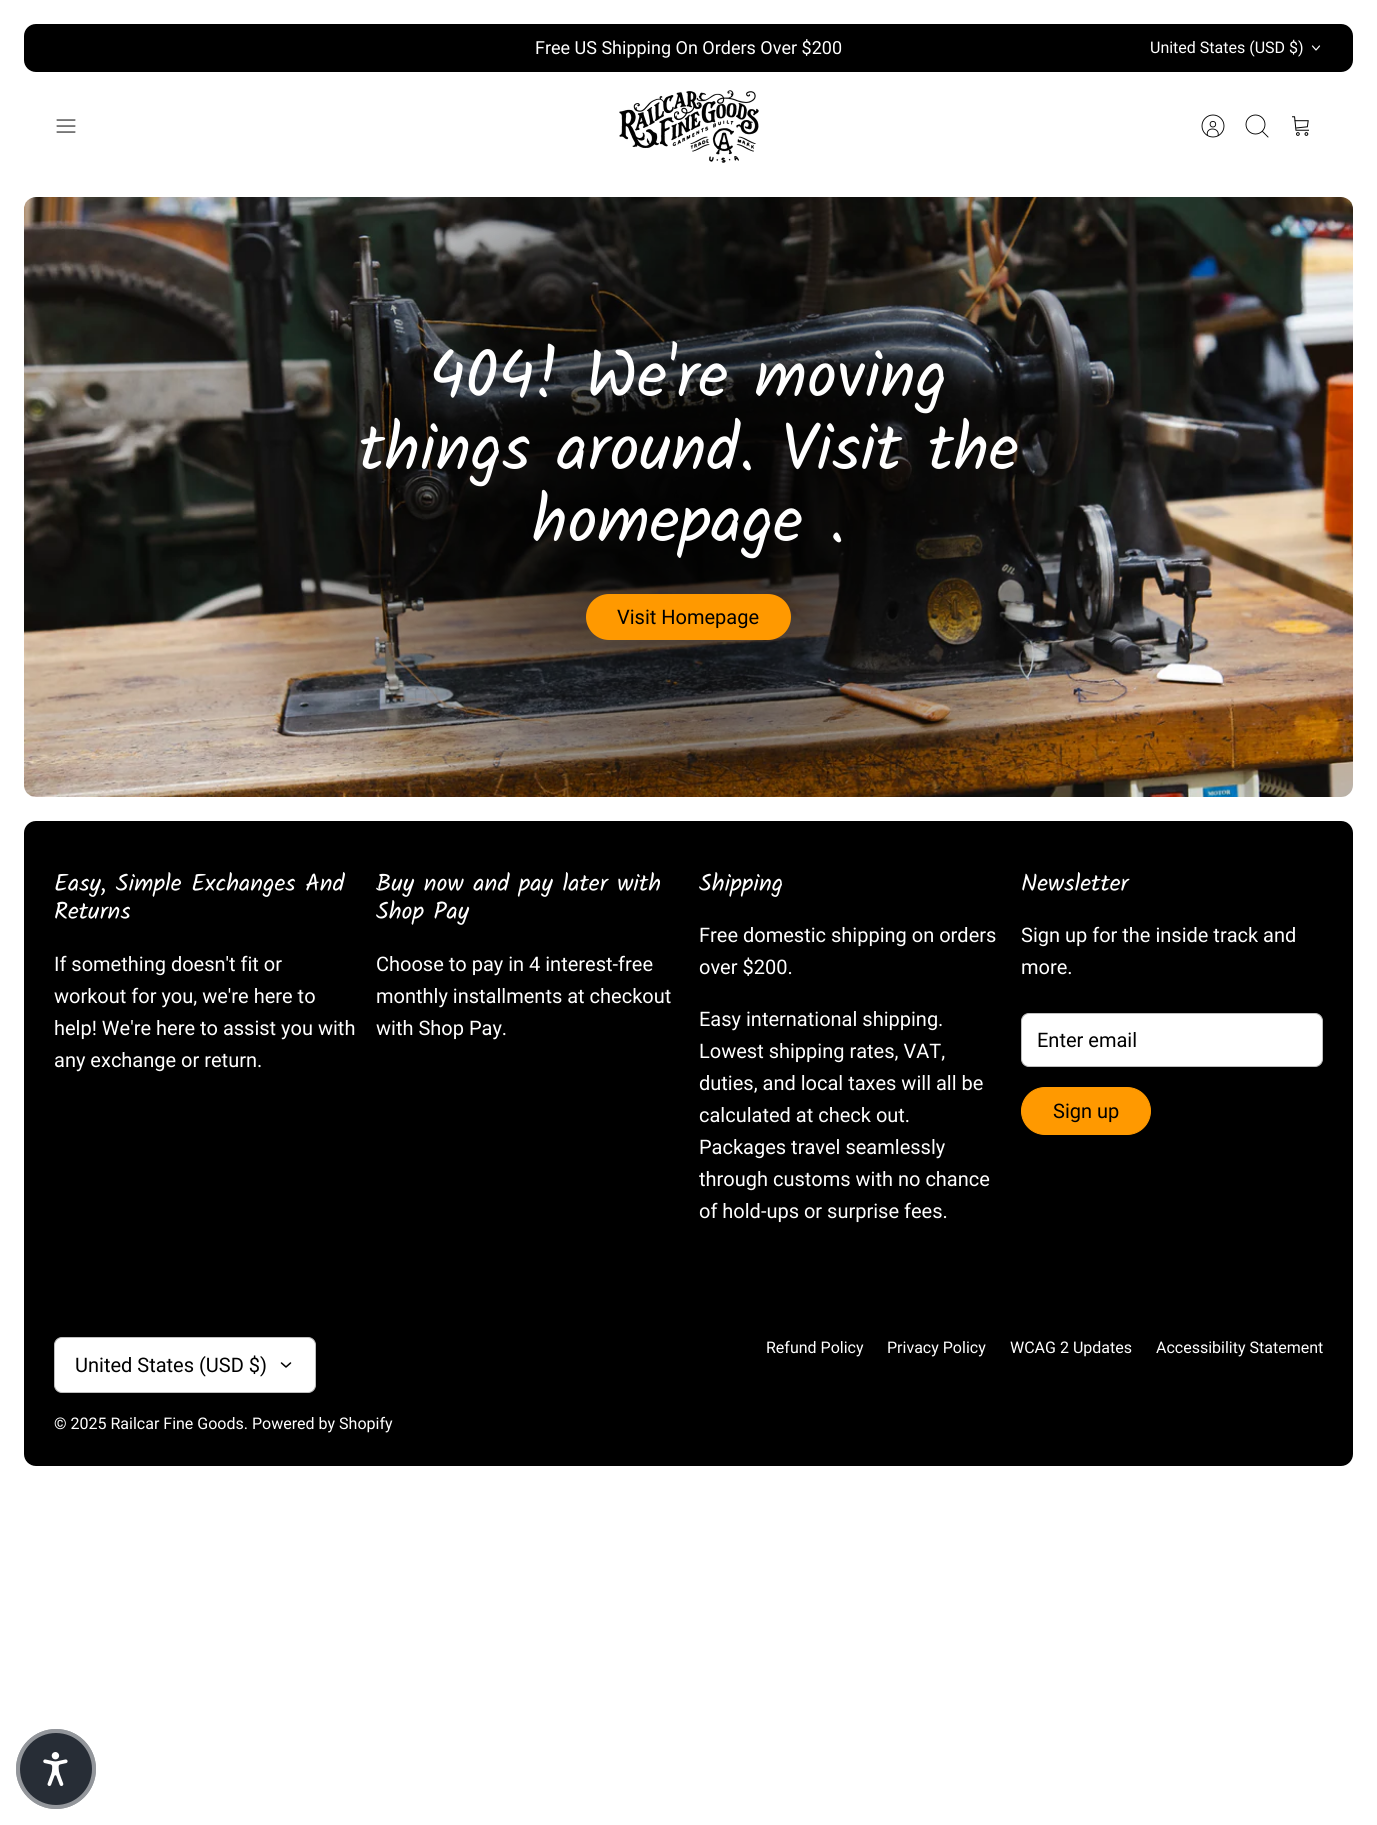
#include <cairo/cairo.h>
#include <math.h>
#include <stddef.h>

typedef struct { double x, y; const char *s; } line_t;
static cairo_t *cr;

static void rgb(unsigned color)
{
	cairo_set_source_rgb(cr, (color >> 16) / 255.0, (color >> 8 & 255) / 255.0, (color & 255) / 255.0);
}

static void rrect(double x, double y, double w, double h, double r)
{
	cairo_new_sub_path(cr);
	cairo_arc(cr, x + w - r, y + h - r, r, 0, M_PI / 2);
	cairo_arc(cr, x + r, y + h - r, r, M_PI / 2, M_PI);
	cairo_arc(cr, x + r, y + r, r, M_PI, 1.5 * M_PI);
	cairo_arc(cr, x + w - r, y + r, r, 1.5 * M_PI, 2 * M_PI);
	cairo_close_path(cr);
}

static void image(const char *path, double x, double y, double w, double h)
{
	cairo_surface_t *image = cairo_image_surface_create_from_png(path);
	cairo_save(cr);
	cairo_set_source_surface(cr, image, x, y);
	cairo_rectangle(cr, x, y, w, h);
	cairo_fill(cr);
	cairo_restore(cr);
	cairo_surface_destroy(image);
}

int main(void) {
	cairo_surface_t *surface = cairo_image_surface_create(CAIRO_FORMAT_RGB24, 1377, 1825);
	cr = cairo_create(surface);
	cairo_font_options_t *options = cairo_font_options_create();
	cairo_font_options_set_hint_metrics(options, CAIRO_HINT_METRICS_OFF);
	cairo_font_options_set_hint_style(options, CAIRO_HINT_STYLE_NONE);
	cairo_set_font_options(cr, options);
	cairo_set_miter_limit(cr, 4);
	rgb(0xffffff);
	cairo_paint(cr);
	rgb(0x000000);
	rrect(24, 24, 1329, 48, 12);
	cairo_fill(cr);
	cairo_new_path(cr);
	cairo_move_to(cr, 1312.5, 46);
	cairo_line_to(cr, 1316, 50);
	cairo_line_to(cr, 1319.5, 46);
	rgb(0xffffff);
	cairo_set_line_width(cr, 1.2);
	cairo_set_line_cap(cr, CAIRO_LINE_CAP_ROUND);
	cairo_set_line_join(cr, CAIRO_LINE_JOIN_ROUND);
	cairo_stroke(cr);
	image("img/1.png", 56, 119, 20, 14);
	image("img/2.png", 619, 90, 140, 73);
	cairo_new_path(cr);
	cairo_move_to(cr, 1218, 136);
	cairo_curve_to(cr, 1220.5, 127, 1205, 126.5, 1207.5, 135.5);
	rgb(0x000000);
	cairo_set_line_width(cr, 0.9);
	cairo_set_line_cap(cr, CAIRO_LINE_CAP_BUTT);
	cairo_set_line_join(cr, CAIRO_LINE_JOIN_MITER);
	cairo_stroke(cr);
	cairo_arc(cr, 1212.9, 124.2, 2.8, 0, 2 * M_PI);
	cairo_stroke(cr);
	cairo_arc(cr, 1213, 126, 11, 0, 2 * M_PI);
	cairo_stroke(cr);
	cairo_arc(cr, 1255.5, 124.5, 9.5, 0, 2 * M_PI);
	cairo_stroke(cr);
	cairo_new_path(cr);
	cairo_move_to(cr, 1262.5, 131.5);
	cairo_line_to(cr, 1268, 137);
	cairo_set_line_cap(cr, CAIRO_LINE_CAP_SQUARE);
	cairo_stroke(cr);
	image("img/3.png", 1292, 116, 17, 20);
	image("img/4.png", 24, 197, 1329, 600);
	rgb(0xff9900);
	rrect(586, 594, 205, 46, 23);
	cairo_fill(cr);
	rgb(0x000000);
	rrect(24, 821, 1329, 645, 12);
	cairo_fill(cr);
	rgb(0xffffff);
	rrect(1021.5, 1013.5, 301, 53, 7.5);
	cairo_fill_preserve(cr);
	rgb(0xbfbfbf);
	cairo_set_line_width(cr, 1);
	cairo_set_line_cap(cr, CAIRO_LINE_CAP_BUTT);
	cairo_stroke(cr);
	rgb(0xff9900);
	rrect(1021.5, 1087.5, 129, 47, 23.5);
	cairo_fill_preserve(cr);
	cairo_stroke(cr);
	rgb(0xffffff);
	rrect(54.5, 1337.5, 261, 55, 7.5);
	cairo_fill_preserve(cr);
	rgb(0xbfbfbf);
	cairo_stroke(cr);
	cairo_new_path(cr);
	cairo_move_to(cr, 281.5, 1363);
	cairo_line_to(cr, 286, 1367);
	cairo_line_to(cr, 290.5, 1363);
	rgb(0x000000);
	cairo_set_line_width(cr, 1.5);
	cairo_set_line_cap(cr, CAIRO_LINE_CAP_ROUND);
	cairo_set_line_join(cr, CAIRO_LINE_JOIN_ROUND);
	cairo_stroke(cr);
	rgb(0x272d36);
	cairo_arc(cr, 56, 1769, 40, 0, 2 * M_PI);
	cairo_fill(cr);
	cairo_arc(cr, 56, 1769, 38, 0, 2 * M_PI);
	cairo_set_source_rgba(cr, 1, 1, 1, 0.5);
	cairo_set_line_width(cr, 4);
	cairo_set_line_cap(cr, CAIRO_LINE_CAP_BUTT);
	cairo_set_line_join(cr, CAIRO_LINE_JOIN_MITER);
	cairo_stroke(cr);
	image("img/5.png", 43, 1752, 25, 34);
	cairo_select_font_face(cr, "Roboto", CAIRO_FONT_SLANT_NORMAL, CAIRO_FONT_WEIGHT_NORMAL);
	cairo_set_font_size(cr, 18);
	rgb(0xffffff);
	cairo_move_to(cr, 535, 54);
	cairo_show_text(cr, "Free US Shipping On Orders Over $200");
	cairo_set_font_size(cr, 16);
	cairo_move_to(cr, 1150, 53);
	cairo_show_text(cr, "United States (USD $)");
	cairo_select_font_face(cr, "Kalam", CAIRO_FONT_SLANT_NORMAL, CAIRO_FONT_WEIGHT_NORMAL);
	cairo_set_font_size(cr, 66);
	{
		static const line_t items[] = {
			{429, 397, "404! We're moving"},
			{359, 470, "things around. Visit the"},
			{532, 542, "homepage ."},
		};
		for (size_t i = 0; i < sizeof items / sizeof *items; i++) {
			cairo_move_to(cr, items[i].x, items[i].y);
			cairo_show_text(cr, items[i].s);
		}
	}
	cairo_select_font_face(cr, "Roboto", CAIRO_FONT_SLANT_NORMAL, CAIRO_FONT_WEIGHT_NORMAL);
	cairo_set_font_size(cr, 20);
	rgb(0x000000);
	cairo_move_to(cr, 617, 624);
	cairo_show_text(cr, "Visit Homepage");
	cairo_select_font_face(cr, "Kalam", CAIRO_FONT_SLANT_NORMAL, CAIRO_FONT_WEIGHT_NORMAL);
	cairo_set_font_size(cr, 24);
	rgb(0xffffff);
	cairo_move_to(cr, 54, 891);
	cairo_show_text(cr, "Easy, Simple Exchanges And");
	cairo_move_to(cr, 54, 919);
	cairo_show_text(cr, "Returns");
	cairo_select_font_face(cr, "Roboto", CAIRO_FONT_SLANT_NORMAL, CAIRO_FONT_WEIGHT_NORMAL);
	cairo_set_font_size(cr, 20);
	{
		static const line_t items[] = {
			{54, 971, "If something doesn't fit or"},
			{54, 1003, "workout for you, we're here to"},
			{54, 1035, "help! We're here to assist you with"},
			{54, 1067, "any exchange or return."},
		};
		for (size_t i = 0; i < sizeof items / sizeof *items; i++) {
			cairo_move_to(cr, items[i].x, items[i].y);
			cairo_show_text(cr, items[i].s);
		}
	}
	cairo_select_font_face(cr, "Kalam", CAIRO_FONT_SLANT_NORMAL, CAIRO_FONT_WEIGHT_NORMAL);
	cairo_set_font_size(cr, 24);
	cairo_move_to(cr, 376, 891);
	cairo_show_text(cr, "Buy now and pay later with");
	cairo_move_to(cr, 376, 919);
	cairo_show_text(cr, "Shop Pay");
	cairo_select_font_face(cr, "Roboto", CAIRO_FONT_SLANT_NORMAL, CAIRO_FONT_WEIGHT_NORMAL);
	cairo_set_font_size(cr, 20);
	{
		static const line_t items[] = {
			{376, 971, "Choose to pay in 4 interest-free"},
			{376, 1003, "monthly installments at checkout"},
			{376, 1035, "with Shop Pay."},
		};
		for (size_t i = 0; i < sizeof items / sizeof *items; i++) {
			cairo_move_to(cr, items[i].x, items[i].y);
			cairo_show_text(cr, items[i].s);
		}
	}
	cairo_select_font_face(cr, "Kalam", CAIRO_FONT_SLANT_NORMAL, CAIRO_FONT_WEIGHT_NORMAL);
	cairo_set_font_size(cr, 24);
	cairo_move_to(cr, 699, 891);
	cairo_show_text(cr, "Shipping");
	cairo_select_font_face(cr, "Roboto", CAIRO_FONT_SLANT_NORMAL, CAIRO_FONT_WEIGHT_NORMAL);
	cairo_set_font_size(cr, 20);
	{
		static const line_t items[] = {
			{699, 942, "Free domestic shipping on orders"},
			{699, 974, "over $200."},
			{699, 1026, "Easy international shipping."},
			{699, 1058, "Lowest shipping rates, VAT,"},
			{699, 1090, "duties, and local taxes will all be"},
			{699, 1122, "calculated at check out."},
			{699, 1154, "Packages travel seamlessly"},
			{699, 1186, "through customs with no chance"},
			{699, 1218, "of hold-ups or surprise fees."},
		};
		for (size_t i = 0; i < sizeof items / sizeof *items; i++) {
			cairo_move_to(cr, items[i].x, items[i].y);
			cairo_show_text(cr, items[i].s);
		}
	}
	cairo_select_font_face(cr, "Kalam", CAIRO_FONT_SLANT_NORMAL, CAIRO_FONT_WEIGHT_NORMAL);
	cairo_set_font_size(cr, 24);
	cairo_move_to(cr, 1021, 891);
	cairo_show_text(cr, "Newsletter");
	cairo_select_font_face(cr, "Roboto", CAIRO_FONT_SLANT_NORMAL, CAIRO_FONT_WEIGHT_NORMAL);
	cairo_set_font_size(cr, 20);
	cairo_move_to(cr, 1021, 942);
	cairo_show_text(cr, "Sign up for the inside track and");
	cairo_move_to(cr, 1021, 974);
	cairo_show_text(cr, "more.");
	rgb(0x000000);
	cairo_move_to(cr, 1037, 1047);
	cairo_show_text(cr, "Enter email");
	cairo_move_to(cr, 1053, 1118);
	cairo_show_text(cr, "Sign up");
	cairo_set_font_size(cr, 16);
	rgb(0xffffff);
	{
		static const line_t items[] = {
			{766, 1353, "Refund Policy"},
			{887, 1353, "Privacy Policy"},
			{1010, 1353, "WCAG 2 Updates"},
			{1156, 1353, "Accessibility Statement"},
		};
		for (size_t i = 0; i < sizeof items / sizeof *items; i++) {
			cairo_move_to(cr, items[i].x, items[i].y);
			cairo_show_text(cr, items[i].s);
		}
	}
	cairo_set_font_size(cr, 20);
	rgb(0x000000);
	cairo_move_to(cr, 75, 1372);
	cairo_show_text(cr, "United States (USD $)");
	cairo_set_font_size(cr, 16);
	rgb(0xffffff);
	cairo_move_to(cr, 54, 1429);
	cairo_show_text(cr, "© 2025 Railcar Fine Goods. Powered by Shopify");
	cairo_surface_write_to_png(surface, "page.png");
	cairo_font_options_destroy(options);
	cairo_destroy(cr);
	cairo_surface_destroy(surface);
	return 0;
}
